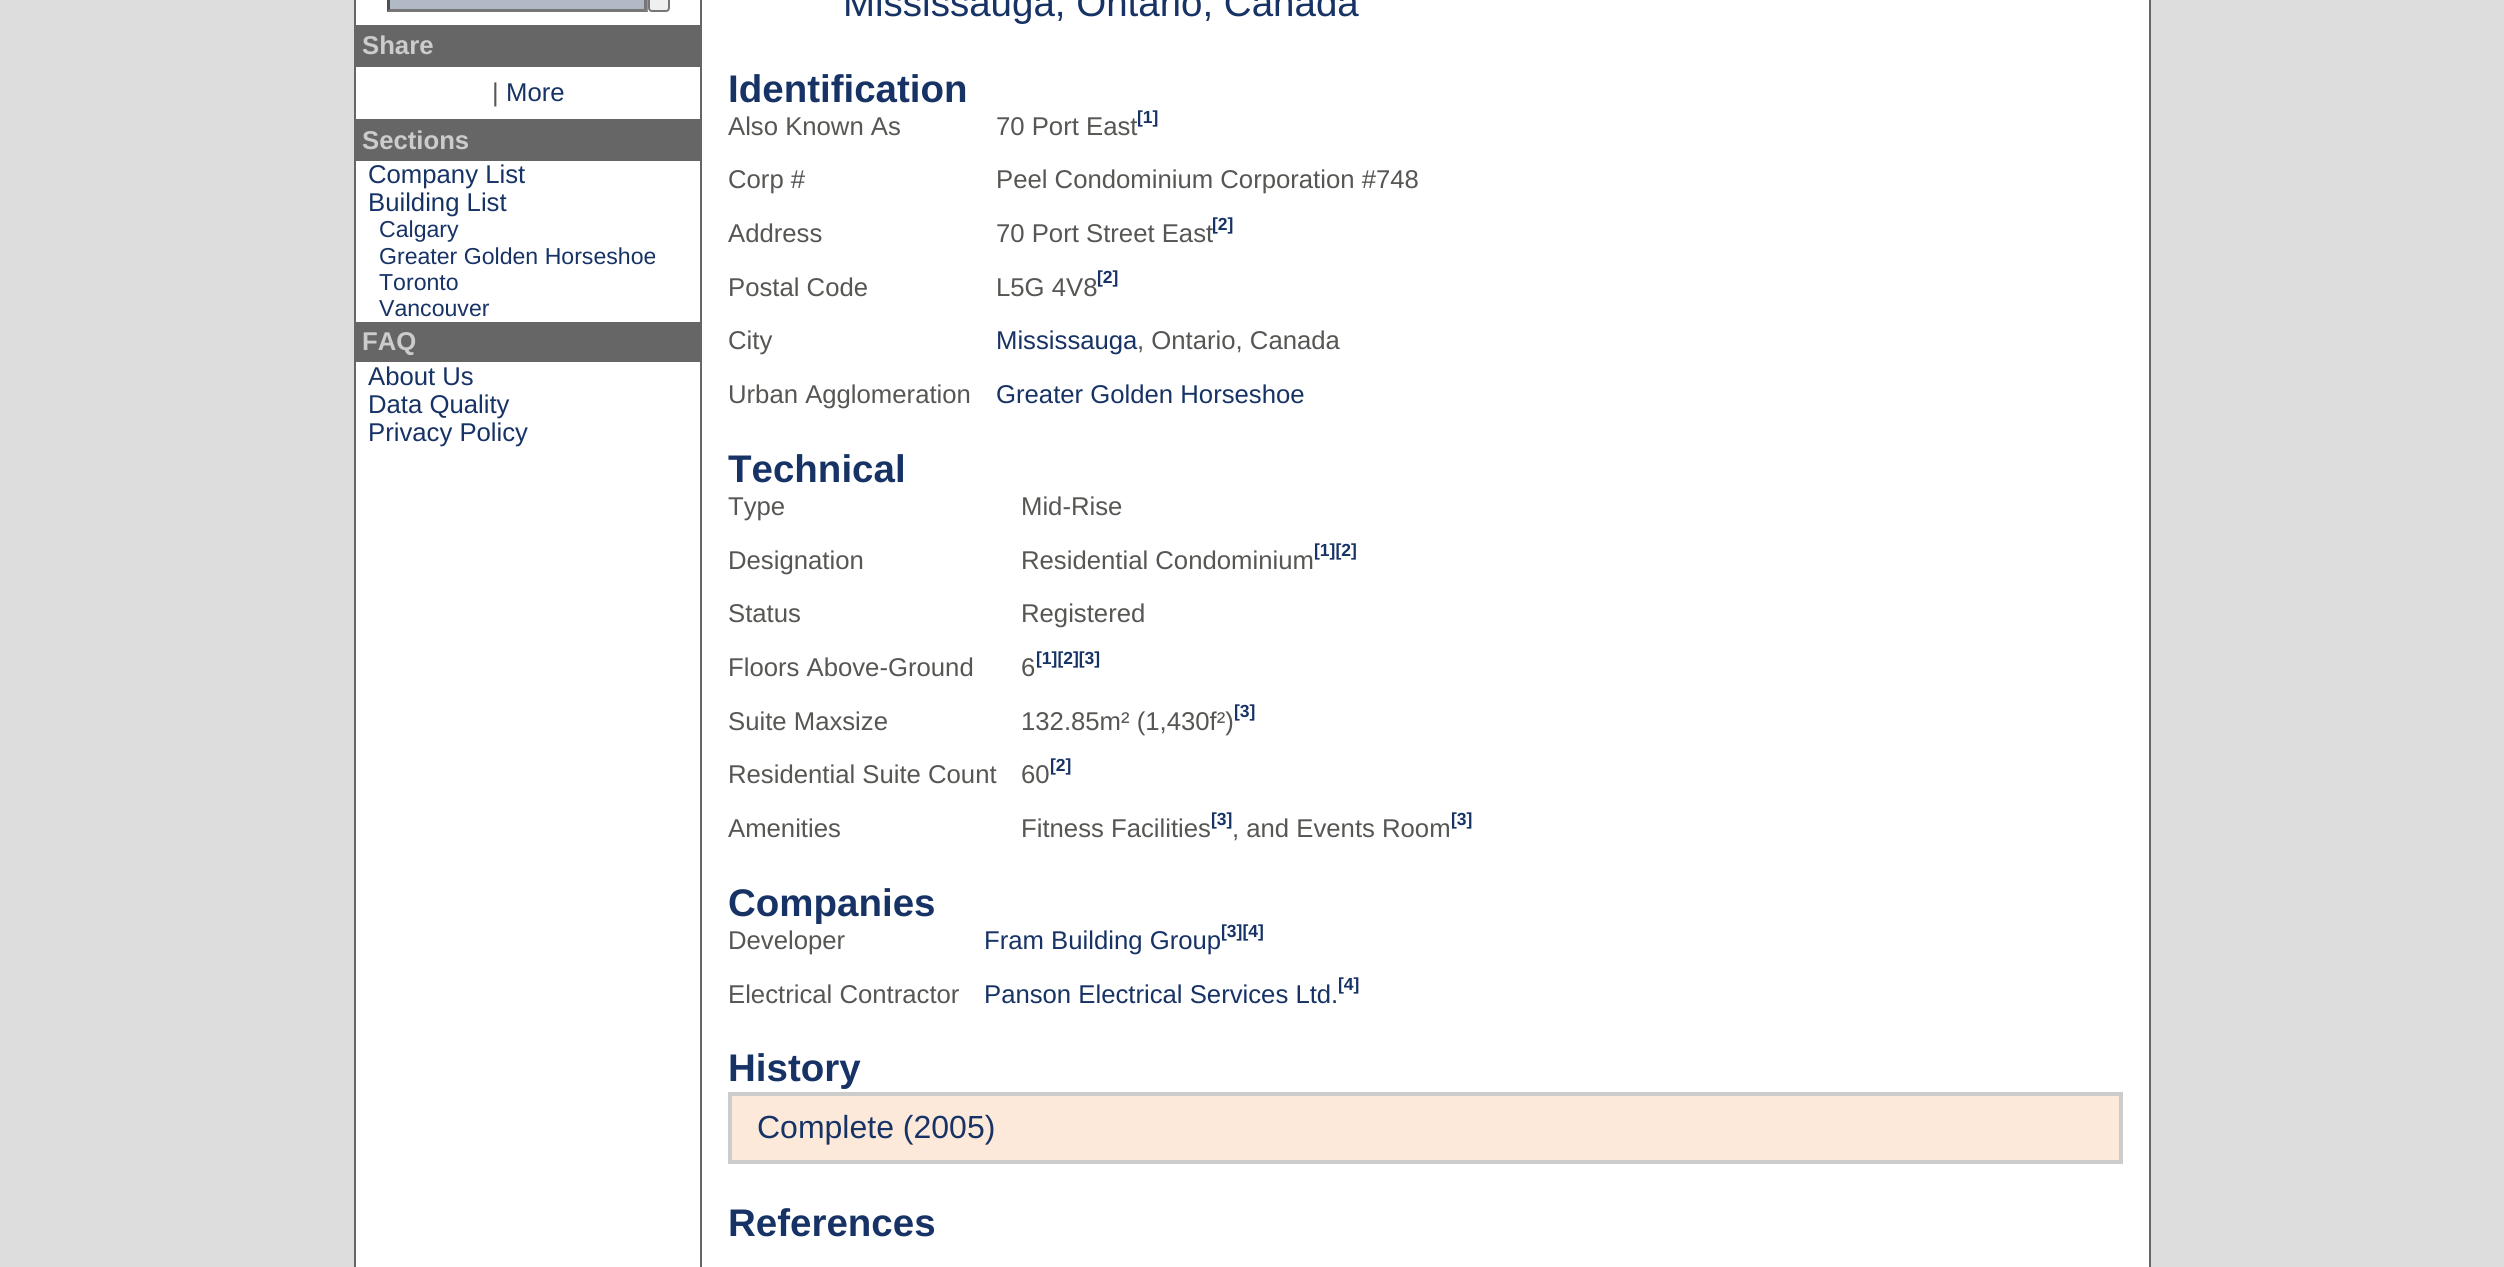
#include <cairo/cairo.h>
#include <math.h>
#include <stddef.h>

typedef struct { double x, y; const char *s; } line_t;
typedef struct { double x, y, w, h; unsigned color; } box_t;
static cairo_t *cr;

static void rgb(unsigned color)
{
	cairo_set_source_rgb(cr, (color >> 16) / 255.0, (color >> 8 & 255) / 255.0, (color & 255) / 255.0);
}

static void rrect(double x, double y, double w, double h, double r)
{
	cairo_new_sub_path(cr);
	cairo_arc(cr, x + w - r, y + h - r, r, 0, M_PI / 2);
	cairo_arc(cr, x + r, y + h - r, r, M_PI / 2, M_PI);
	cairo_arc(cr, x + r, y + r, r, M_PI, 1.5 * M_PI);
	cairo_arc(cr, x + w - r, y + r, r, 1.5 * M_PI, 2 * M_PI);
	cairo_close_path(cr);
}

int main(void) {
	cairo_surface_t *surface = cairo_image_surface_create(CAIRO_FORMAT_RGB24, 2504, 1267);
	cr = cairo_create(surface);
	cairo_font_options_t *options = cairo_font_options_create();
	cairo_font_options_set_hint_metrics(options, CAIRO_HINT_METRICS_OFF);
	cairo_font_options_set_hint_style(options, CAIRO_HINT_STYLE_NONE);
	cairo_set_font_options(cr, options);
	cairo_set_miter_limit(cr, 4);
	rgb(0xdddddd);
	cairo_paint(cr);
	{
		static const box_t items[] = {
			{356, 0, 344, 1267, 0xffffff},
			{700, 0, 2, 1267, 0x666666},
			{354, 0, 2, 1267, 0x666666},
			{387, 0, 261, 12, 0xb2b9c6},
		};
		for (size_t i = 0; i < sizeof items / sizeof *items; i++) {
			rgb(items[i].color);
			cairo_rectangle(cr, items[i].x, items[i].y, items[i].w, items[i].h);
			cairo_fill(cr);
		}
	}
	rgb(0x767676);
	cairo_new_path(cr);
	cairo_move_to(cr, 647.5, -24.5);
	cairo_line_to(cr, 647.5, 12);
	cairo_line_to(cr, 644, 9);
	cairo_line_to(cr, 644, -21);
	cairo_close_path(cr);
	cairo_fill(cr);
	cairo_new_path(cr);
	cairo_move_to(cr, 648, 12);
	cairo_line_to(cr, 387, 12);
	cairo_line_to(cr, 390, 9);
	cairo_line_to(cr, 644, 9);
	cairo_close_path(cr);
	cairo_fill(cr);
	rgb(0x4f4f4f);
	cairo_new_path(cr);
	cairo_move_to(cr, 387, 12);
	cairo_line_to(cr, 387, -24.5);
	cairo_line_to(cr, 390, -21);
	cairo_line_to(cr, 390, 9);
	cairo_close_path(cr);
	cairo_fill(cr);
	rgb(0xefefef);
	rrect(649, -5, 20, 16, 3);
	cairo_fill_preserve(cr);
	rgb(0x767676);
	cairo_stroke(cr);
	{
		static const box_t items[] = {
			{356, 25, 344, 42, 0x666666},
			{356, 119, 344, 42, 0x666666},
			{356, 322, 344, 40, 0x666666},
			{702, 0, 1447, 1267, 0xffffff},
			{2149, 0, 2, 1267, 0x666666},
		};
		for (size_t i = 0; i < sizeof items / sizeof *items; i++) {
			rgb(items[i].color);
			cairo_rectangle(cr, items[i].x, items[i].y, items[i].w, items[i].h);
			cairo_fill(cr);
		}
	}
	rgb(0xfde9d9);
	cairo_rectangle(cr, 730, 1094, 1391, 68);
	cairo_fill_preserve(cr);
	rgb(0xcccccc);
	cairo_set_line_width(cr, 4);
	cairo_stroke(cr);
	cairo_select_font_face(cr, "Liberation Sans", CAIRO_FONT_SLANT_NORMAL, CAIRO_FONT_WEIGHT_BOLD);
	cairo_set_font_size(cr, 25.7);
	cairo_move_to(cr, 362, 54);
	cairo_show_text(cr, "Share");
	cairo_select_font_face(cr, "Liberation Sans", CAIRO_FONT_SLANT_NORMAL, CAIRO_FONT_WEIGHT_NORMAL);
	rgb(0x555753);
	cairo_move_to(cr, 492, 101);
	cairo_show_text(cr, "|");
	rgb(0x173366);
	cairo_move_to(cr, 506, 101);
	cairo_show_text(cr, "More");
	cairo_select_font_face(cr, "Liberation Sans", CAIRO_FONT_SLANT_NORMAL, CAIRO_FONT_WEIGHT_BOLD);
	rgb(0xcccccc);
	cairo_move_to(cr, 362, 149);
	cairo_show_text(cr, "Sections");
	cairo_select_font_face(cr, "Liberation Sans", CAIRO_FONT_SLANT_NORMAL, CAIRO_FONT_WEIGHT_NORMAL);
	rgb(0x173366);
	cairo_move_to(cr, 368, 183);
	cairo_show_text(cr, "Company List");
	cairo_move_to(cr, 368, 211);
	cairo_show_text(cr, "Building List");
	cairo_set_font_size(cr, 23.1);
	{
		static const line_t items[] = {
			{379, 237, "Calgary"},
			{379, 264, "Greater Golden Horseshoe"},
			{379, 290, "Toronto"},
			{379, 316, "Vancouver"},
		};
		for (size_t i = 0; i < sizeof items / sizeof *items; i++) {
			cairo_move_to(cr, items[i].x, items[i].y);
			cairo_show_text(cr, items[i].s);
		}
	}
	cairo_select_font_face(cr, "Liberation Sans", CAIRO_FONT_SLANT_NORMAL, CAIRO_FONT_WEIGHT_BOLD);
	cairo_set_font_size(cr, 25.7);
	rgb(0xcccccc);
	cairo_move_to(cr, 362, 350);
	cairo_show_text(cr, "FAQ");
	cairo_select_font_face(cr, "Liberation Sans", CAIRO_FONT_SLANT_NORMAL, CAIRO_FONT_WEIGHT_NORMAL);
	rgb(0x173366);
	{
		static const line_t items[] = {
			{368, 385, "About Us"},
			{368, 413, "Data Quality"},
			{368, 441, "Privacy Policy"},
		};
		for (size_t i = 0; i < sizeof items / sizeof *items; i++) {
			cairo_move_to(cr, items[i].x, items[i].y);
			cairo_show_text(cr, items[i].s);
		}
	}
	cairo_set_font_size(cr, 38.5);
	cairo_move_to(cr, 843, 16);
	cairo_show_text(cr, "Mississauga, Ontario, Canada");
	cairo_select_font_face(cr, "Liberation Sans", CAIRO_FONT_SLANT_NORMAL, CAIRO_FONT_WEIGHT_BOLD);
	cairo_move_to(cr, 728, 102);
	cairo_show_text(cr, "Identification");
	cairo_select_font_face(cr, "Liberation Sans", CAIRO_FONT_SLANT_NORMAL, CAIRO_FONT_WEIGHT_NORMAL);
	cairo_set_font_size(cr, 25.7);
	rgb(0x555753);
	cairo_move_to(cr, 728, 135);
	cairo_show_text(cr, "Also Known As");
	cairo_move_to(cr, 996, 135);
	cairo_show_text(cr, "70 Port East");
	cairo_select_font_face(cr, "Liberation Sans", CAIRO_FONT_SLANT_NORMAL, CAIRO_FONT_WEIGHT_BOLD);
	cairo_set_font_size(cr, 17.5);
	rgb(0x173366);
	cairo_move_to(cr, 1137, 123);
	cairo_show_text(cr, "[1]");
	cairo_select_font_face(cr, "Liberation Sans", CAIRO_FONT_SLANT_NORMAL, CAIRO_FONT_WEIGHT_NORMAL);
	cairo_set_font_size(cr, 25.7);
	rgb(0x555753);
	{
		static const line_t items[] = {
			{728, 188, "Corp #"},
			{996, 188, "Peel Condominium Corporation #748"},
			{728, 242, "Address"},
			{996, 242, "70 Port Street East"},
		};
		for (size_t i = 0; i < sizeof items / sizeof *items; i++) {
			cairo_move_to(cr, items[i].x, items[i].y);
			cairo_show_text(cr, items[i].s);
		}
	}
	cairo_select_font_face(cr, "Liberation Sans", CAIRO_FONT_SLANT_NORMAL, CAIRO_FONT_WEIGHT_BOLD);
	cairo_set_font_size(cr, 17.5);
	rgb(0x173366);
	cairo_move_to(cr, 1212, 230);
	cairo_show_text(cr, "[2]");
	cairo_select_font_face(cr, "Liberation Sans", CAIRO_FONT_SLANT_NORMAL, CAIRO_FONT_WEIGHT_NORMAL);
	cairo_set_font_size(cr, 25.7);
	rgb(0x555753);
	cairo_move_to(cr, 728, 296);
	cairo_show_text(cr, "Postal Code");
	cairo_move_to(cr, 996, 296);
	cairo_show_text(cr, "L5G 4V8");
	cairo_select_font_face(cr, "Liberation Sans", CAIRO_FONT_SLANT_NORMAL, CAIRO_FONT_WEIGHT_BOLD);
	cairo_set_font_size(cr, 17.5);
	rgb(0x173366);
	cairo_move_to(cr, 1097, 283);
	cairo_show_text(cr, "[2]");
	cairo_select_font_face(cr, "Liberation Sans", CAIRO_FONT_SLANT_NORMAL, CAIRO_FONT_WEIGHT_NORMAL);
	cairo_set_font_size(cr, 25.7);
	rgb(0x555753);
	cairo_move_to(cr, 728, 349);
	cairo_show_text(cr, "City");
	rgb(0x173366);
	cairo_move_to(cr, 996, 349);
	cairo_show_text(cr, "Mississauga");
	rgb(0x555753);
	cairo_move_to(cr, 1137, 349);
	cairo_show_text(cr, ", Ontario, Canada");
	cairo_move_to(cr, 728, 403);
	cairo_show_text(cr, "Urban Agglomeration");
	rgb(0x173366);
	cairo_move_to(cr, 996, 403);
	cairo_show_text(cr, "Greater Golden Horseshoe");
	cairo_select_font_face(cr, "Liberation Sans", CAIRO_FONT_SLANT_NORMAL, CAIRO_FONT_WEIGHT_BOLD);
	cairo_set_font_size(cr, 38.5);
	cairo_move_to(cr, 728, 482);
	cairo_show_text(cr, "Technical");
	cairo_select_font_face(cr, "Liberation Sans", CAIRO_FONT_SLANT_NORMAL, CAIRO_FONT_WEIGHT_NORMAL);
	cairo_set_font_size(cr, 25.7);
	rgb(0x555753);
	{
		static const line_t items[] = {
			{728, 515, "Type"},
			{1021, 515, "Mid-Rise"},
			{728, 569, "Designation"},
			{1021, 569, "Residential Condominium"},
		};
		for (size_t i = 0; i < sizeof items / sizeof *items; i++) {
			cairo_move_to(cr, items[i].x, items[i].y);
			cairo_show_text(cr, items[i].s);
		}
	}
	cairo_select_font_face(cr, "Liberation Sans", CAIRO_FONT_SLANT_NORMAL, CAIRO_FONT_WEIGHT_BOLD);
	cairo_set_font_size(cr, 17.5);
	rgb(0x173366);
	cairo_move_to(cr, 1314, 556);
	cairo_show_text(cr, "[1][2]");
	cairo_select_font_face(cr, "Liberation Sans", CAIRO_FONT_SLANT_NORMAL, CAIRO_FONT_WEIGHT_NORMAL);
	cairo_set_font_size(cr, 25.7);
	rgb(0x555753);
	{
		static const line_t items[] = {
			{728, 622, "Status"},
			{1021, 622, "Registered"},
			{728, 676, "Floors Above-Ground"},
			{1021, 676, "6"},
		};
		for (size_t i = 0; i < sizeof items / sizeof *items; i++) {
			cairo_move_to(cr, items[i].x, items[i].y);
			cairo_show_text(cr, items[i].s);
		}
	}
	cairo_select_font_face(cr, "Liberation Sans", CAIRO_FONT_SLANT_NORMAL, CAIRO_FONT_WEIGHT_BOLD);
	cairo_set_font_size(cr, 17.5);
	rgb(0x173366);
	cairo_move_to(cr, 1036, 664);
	cairo_show_text(cr, "[1][2][3]");
	cairo_select_font_face(cr, "Liberation Sans", CAIRO_FONT_SLANT_NORMAL, CAIRO_FONT_WEIGHT_NORMAL);
	cairo_set_font_size(cr, 25.7);
	rgb(0x555753);
	cairo_move_to(cr, 728, 730);
	cairo_show_text(cr, "Suite Maxsize");
	cairo_move_to(cr, 1021, 730);
	cairo_show_text(cr, "132.85m² (1,430f²)");
	cairo_select_font_face(cr, "Liberation Sans", CAIRO_FONT_SLANT_NORMAL, CAIRO_FONT_WEIGHT_BOLD);
	cairo_set_font_size(cr, 17.5);
	rgb(0x173366);
	cairo_move_to(cr, 1234, 717);
	cairo_show_text(cr, "[3]");
	cairo_select_font_face(cr, "Liberation Sans", CAIRO_FONT_SLANT_NORMAL, CAIRO_FONT_WEIGHT_NORMAL);
	cairo_set_font_size(cr, 25.7);
	rgb(0x555753);
	cairo_move_to(cr, 728, 783);
	cairo_show_text(cr, "Residential Suite Count");
	cairo_move_to(cr, 1021, 783);
	cairo_show_text(cr, "60");
	cairo_select_font_face(cr, "Liberation Sans", CAIRO_FONT_SLANT_NORMAL, CAIRO_FONT_WEIGHT_BOLD);
	cairo_set_font_size(cr, 17.5);
	rgb(0x173366);
	cairo_move_to(cr, 1050, 771);
	cairo_show_text(cr, "[2]");
	cairo_select_font_face(cr, "Liberation Sans", CAIRO_FONT_SLANT_NORMAL, CAIRO_FONT_WEIGHT_NORMAL);
	cairo_set_font_size(cr, 25.7);
	rgb(0x555753);
	cairo_move_to(cr, 728, 837);
	cairo_show_text(cr, "Amenities");
	cairo_move_to(cr, 1021, 837);
	cairo_show_text(cr, "Fitness Facilities");
	cairo_select_font_face(cr, "Liberation Sans", CAIRO_FONT_SLANT_NORMAL, CAIRO_FONT_WEIGHT_BOLD);
	cairo_set_font_size(cr, 17.5);
	rgb(0x173366);
	cairo_move_to(cr, 1211, 825);
	cairo_show_text(cr, "[3]");
	cairo_select_font_face(cr, "Liberation Sans", CAIRO_FONT_SLANT_NORMAL, CAIRO_FONT_WEIGHT_NORMAL);
	cairo_set_font_size(cr, 25.7);
	rgb(0x555753);
	cairo_move_to(cr, 1232, 837);
	cairo_show_text(cr, ", and Events Room");
	cairo_select_font_face(cr, "Liberation Sans", CAIRO_FONT_SLANT_NORMAL, CAIRO_FONT_WEIGHT_BOLD);
	cairo_set_font_size(cr, 17.5);
	rgb(0x173366);
	cairo_move_to(cr, 1451, 825);
	cairo_show_text(cr, "[3]");
	cairo_set_font_size(cr, 38.5);
	cairo_move_to(cr, 728, 916);
	cairo_show_text(cr, "Companies");
	cairo_select_font_face(cr, "Liberation Sans", CAIRO_FONT_SLANT_NORMAL, CAIRO_FONT_WEIGHT_NORMAL);
	cairo_set_font_size(cr, 25.7);
	rgb(0x555753);
	cairo_move_to(cr, 728, 949);
	cairo_show_text(cr, "Developer");
	rgb(0x173366);
	cairo_move_to(cr, 984, 949);
	cairo_show_text(cr, "Fram Building Group");
	cairo_select_font_face(cr, "Liberation Sans", CAIRO_FONT_SLANT_NORMAL, CAIRO_FONT_WEIGHT_BOLD);
	cairo_set_font_size(cr, 17.5);
	cairo_move_to(cr, 1221, 937);
	cairo_show_text(cr, "[3][4]");
	cairo_select_font_face(cr, "Liberation Sans", CAIRO_FONT_SLANT_NORMAL, CAIRO_FONT_WEIGHT_NORMAL);
	cairo_set_font_size(cr, 25.7);
	rgb(0x555753);
	cairo_move_to(cr, 728, 1003);
	cairo_show_text(cr, "Electrical Contractor");
	rgb(0x173366);
	cairo_move_to(cr, 984, 1003);
	cairo_show_text(cr, "Panson Electrical Services Ltd.");
	cairo_select_font_face(cr, "Liberation Sans", CAIRO_FONT_SLANT_NORMAL, CAIRO_FONT_WEIGHT_BOLD);
	cairo_set_font_size(cr, 17.5);
	cairo_move_to(cr, 1338, 990);
	cairo_show_text(cr, "[4]");
	cairo_set_font_size(cr, 38.5);
	cairo_move_to(cr, 728, 1081);
	cairo_show_text(cr, "History");
	cairo_select_font_face(cr, "Liberation Sans", CAIRO_FONT_SLANT_NORMAL, CAIRO_FONT_WEIGHT_NORMAL);
	cairo_set_font_size(cr, 32);
	cairo_move_to(cr, 757, 1138);
	cairo_show_text(cr, "Complete (2005)");
	cairo_select_font_face(cr, "Liberation Sans", CAIRO_FONT_SLANT_NORMAL, CAIRO_FONT_WEIGHT_BOLD);
	cairo_set_font_size(cr, 38.5);
	cairo_move_to(cr, 728, 1236);
	cairo_show_text(cr, "References");
	cairo_surface_write_to_png(surface, "page.png");
	cairo_font_options_destroy(options);
	cairo_destroy(cr);
	cairo_surface_destroy(surface);
	return 0;
}
